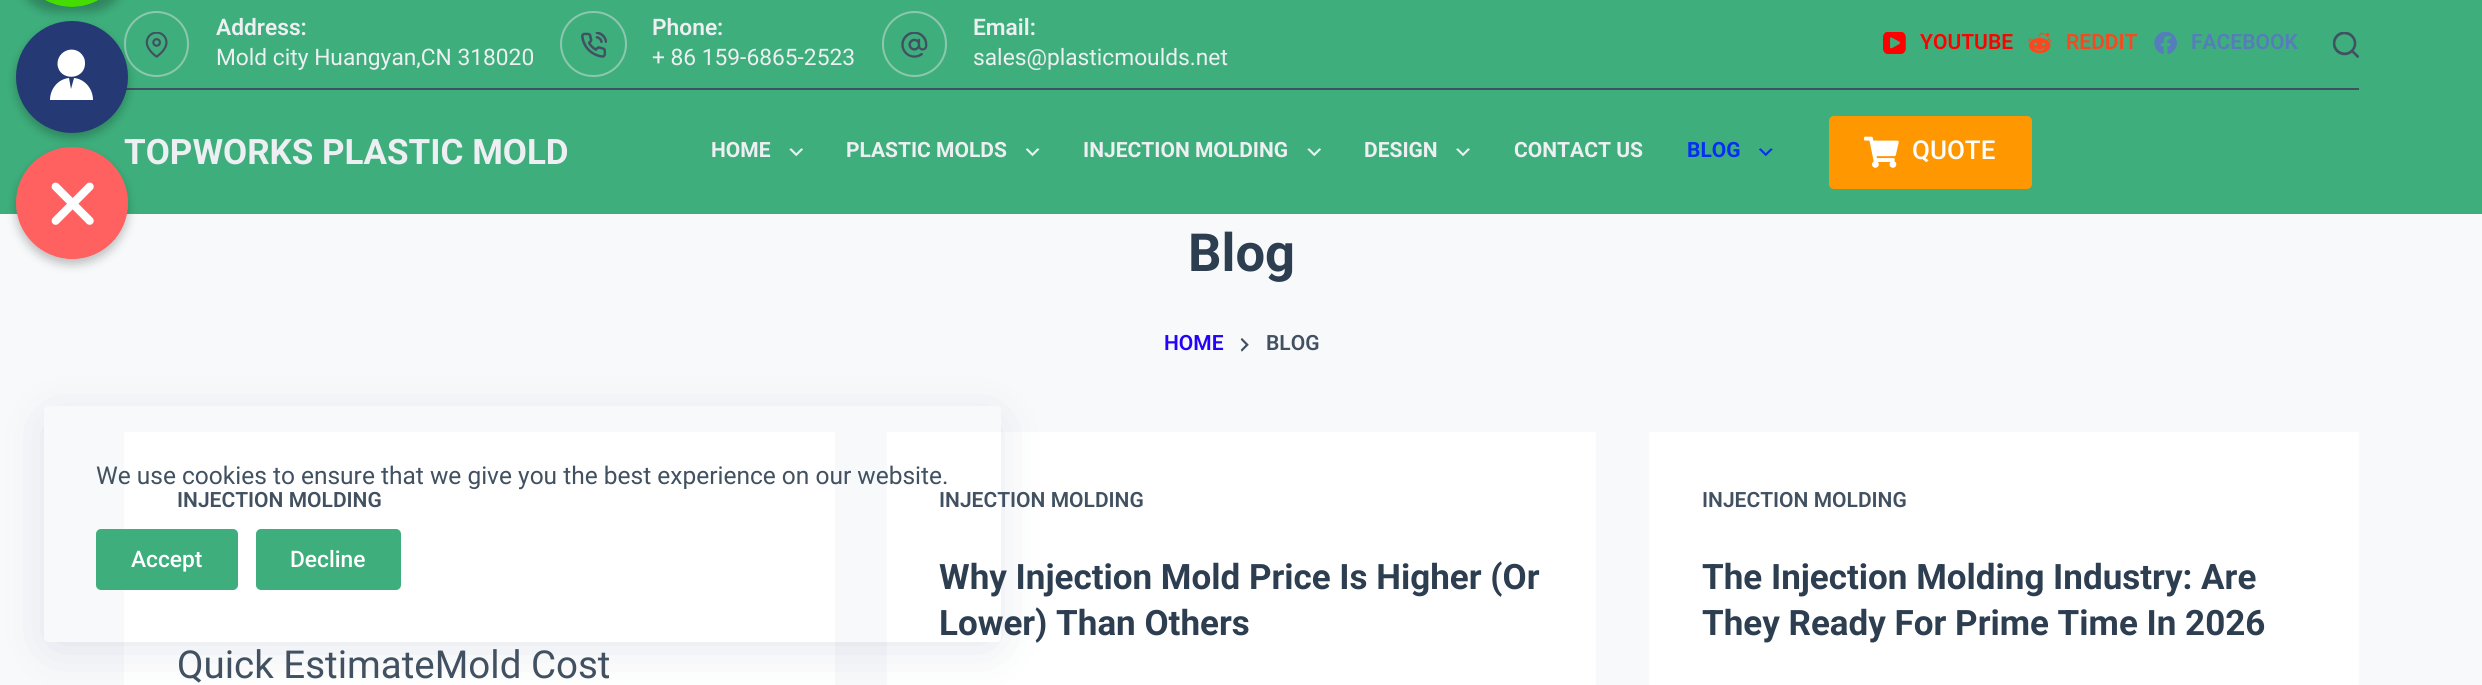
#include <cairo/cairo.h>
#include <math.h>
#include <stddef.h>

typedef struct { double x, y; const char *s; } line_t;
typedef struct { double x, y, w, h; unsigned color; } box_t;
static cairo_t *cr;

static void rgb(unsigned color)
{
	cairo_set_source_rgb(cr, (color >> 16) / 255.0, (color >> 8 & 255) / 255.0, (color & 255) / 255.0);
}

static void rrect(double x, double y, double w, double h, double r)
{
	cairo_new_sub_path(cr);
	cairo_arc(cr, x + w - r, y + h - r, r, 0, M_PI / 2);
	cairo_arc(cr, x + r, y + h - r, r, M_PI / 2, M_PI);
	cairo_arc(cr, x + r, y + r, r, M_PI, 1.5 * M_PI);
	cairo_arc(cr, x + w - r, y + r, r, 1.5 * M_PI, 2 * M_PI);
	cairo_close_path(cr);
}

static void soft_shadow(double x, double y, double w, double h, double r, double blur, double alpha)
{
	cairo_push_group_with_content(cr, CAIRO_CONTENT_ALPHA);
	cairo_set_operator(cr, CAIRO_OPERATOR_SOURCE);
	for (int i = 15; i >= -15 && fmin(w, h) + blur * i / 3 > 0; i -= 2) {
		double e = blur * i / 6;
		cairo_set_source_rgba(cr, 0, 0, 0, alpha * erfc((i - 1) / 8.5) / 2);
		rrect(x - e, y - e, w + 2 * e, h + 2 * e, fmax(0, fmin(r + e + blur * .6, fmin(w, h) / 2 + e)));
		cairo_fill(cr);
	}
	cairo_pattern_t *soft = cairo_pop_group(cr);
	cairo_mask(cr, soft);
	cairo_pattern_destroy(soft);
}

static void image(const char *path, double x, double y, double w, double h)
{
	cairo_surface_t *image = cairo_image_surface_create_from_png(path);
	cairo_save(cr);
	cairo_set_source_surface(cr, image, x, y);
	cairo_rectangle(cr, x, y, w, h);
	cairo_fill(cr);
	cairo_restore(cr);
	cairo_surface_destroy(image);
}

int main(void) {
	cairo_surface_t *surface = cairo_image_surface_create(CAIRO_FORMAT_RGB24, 2482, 685);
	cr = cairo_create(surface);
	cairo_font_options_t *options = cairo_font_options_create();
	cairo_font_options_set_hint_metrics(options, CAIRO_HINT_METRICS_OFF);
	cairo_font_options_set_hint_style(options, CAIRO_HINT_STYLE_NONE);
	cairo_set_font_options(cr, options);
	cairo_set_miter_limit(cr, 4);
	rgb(0xf8f9fb);
	cairo_paint(cr);
	rgb(0x3eaf7c);
	cairo_rectangle(cr, 0, 0, 2482, 214);
	cairo_fill(cr);
	rrect(125, 12, 63, 64, 31.5);
	rgb(0x8cc7b0);
	cairo_stroke(cr);
	rgb(0x000000);
	soft_shadow(16, -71, 112, 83, 56, 5, 0.25);
	image("img/1.png", 45, 0, 53, 7);
	rgb(0x415161);
	cairo_rectangle(cr, 124, 88, 2235, 2);
	cairo_fill(cr);
	image("img/3.png", 145, 32, 23, 26);
	rrect(561, 12, 65, 64, 32);
	rgb(0x8cc7b0);
	cairo_stroke(cr);
	image("img/4.png", 581, 32, 26, 26);
	rrect(883, 12, 63, 64, 31.5);
	cairo_stroke(cr);
	image("img/5.png", 901, 32, 27, 26);
	image("img/6.png", 1883, 32, 23, 22);
	image("img/7.png", 2028, 32, 23, 22);
	image("img/8.png", 2154, 32, 23, 22);
	image("img/9.png", 2333, 32, 26, 26);
	image("img/10.png", 789, 148, 14, 9);
	image("img/11.png", 1026, 148, 14, 9);
	image("img/10.png", 1307, 148, 14, 9);
	image("img/12.png", 1456, 148, 14, 9);
	image("img/13.png", 1759, 148, 14, 9);
	rgb(0xff9700);
	rrect(1829, 116, 203, 73, 5);
	cairo_fill(cr);
	image("img/14.png", 1864, 136, 35, 32);
	image("img/15.png", 1240, 338, 9, 14);
	{
		static const box_t items[] = {
			{124, 432, 711, 253, 0xffffff},
			{887, 432, 709, 253, 0xffffff},
			{1649, 432, 710, 253, 0xffffff},
		};
		for (size_t i = 0; i < sizeof items / sizeof *items; i++) {
			rgb(items[i].color);
			cairo_rectangle(cr, items[i].x, items[i].y, items[i].w, items[i].h);
			cairo_fill(cr);
		}
	}
	cairo_save(cr);
	cairo_set_fill_rule(cr, CAIRO_FILL_RULE_EVEN_ODD);
	cairo_new_path(cr);
	cairo_move_to(cr, 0, 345);
	cairo_line_to(cr, 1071, 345);
	cairo_line_to(cr, 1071, 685);
	cairo_line_to(cr, 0, 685);
	cairo_close_path(cr);
	cairo_move_to(cr, 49, 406);
	cairo_line_to(cr, 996, 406);
	cairo_curve_to(cr, 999, 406, 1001, 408, 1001, 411);
	cairo_line_to(cr, 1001, 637);
	cairo_curve_to(cr, 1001, 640, 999, 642, 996, 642);
	cairo_line_to(cr, 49, 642);
	cairo_curve_to(cr, 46, 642, 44, 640, 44, 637);
	cairo_line_to(cr, 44, 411);
	cairo_curve_to(cr, 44, 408, 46, 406, 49, 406);
	cairo_close_path(cr);
	cairo_clip(cr);
	rgb(0x223865);
	soft_shadow(53, 424, 939, 218, 0, 26, 0.15);
	cairo_restore(cr);
	rgb(0x3eaf7c);
	rrect(96, 529, 142, 61, 5);
	cairo_fill(cr);
	rrect(256, 529, 145, 61, 5);
	cairo_fill(cr);
	cairo_select_font_face(cr, "Roboto SemiBold", CAIRO_FONT_SLANT_NORMAL, CAIRO_FONT_WEIGHT_NORMAL);
	cairo_set_font_size(cr, 22.75);
	rgb(0xedeff2);
	cairo_move_to(cr, 216, 35);
	cairo_show_text(cr, "Address:");
	cairo_select_font_face(cr, "Roboto", CAIRO_FONT_SLANT_NORMAL, CAIRO_FONT_WEIGHT_NORMAL);
	cairo_move_to(cr, 216, 65);
	cairo_show_text(cr, "Mold city Huangyan,CN 318020");
	cairo_select_font_face(cr, "Roboto SemiBold", CAIRO_FONT_SLANT_NORMAL, CAIRO_FONT_WEIGHT_NORMAL);
	cairo_move_to(cr, 652, 35);
	cairo_show_text(cr, "Phone:");
	cairo_select_font_face(cr, "Roboto", CAIRO_FONT_SLANT_NORMAL, CAIRO_FONT_WEIGHT_NORMAL);
	cairo_move_to(cr, 652, 65);
	cairo_show_text(cr, "+ 86 159-6865-2523");
	cairo_select_font_face(cr, "Roboto SemiBold", CAIRO_FONT_SLANT_NORMAL, CAIRO_FONT_WEIGHT_NORMAL);
	cairo_move_to(cr, 973, 35);
	cairo_show_text(cr, "Email:");
	cairo_select_font_face(cr, "Roboto", CAIRO_FONT_SLANT_NORMAL, CAIRO_FONT_WEIGHT_NORMAL);
	cairo_move_to(cr, 973, 65);
	cairo_show_text(cr, "sales@plasticmoulds.net");
	cairo_select_font_face(cr, "Roboto SemiBold", CAIRO_FONT_SLANT_NORMAL, CAIRO_FONT_WEIGHT_NORMAL);
	cairo_set_font_size(cr, 21);
	rgb(0xff0000);
	cairo_move_to(cr, 1920, 49);
	cairo_show_text(cr, "YOUTUBE");
	rgb(0xfc471e);
	cairo_move_to(cr, 2066, 49);
	cairo_show_text(cr, "REDDIT");
	rgb(0x557dbc);
	cairo_move_to(cr, 2191, 49);
	cairo_show_text(cr, "FACEBOOK");
	cairo_select_font_face(cr, "Roboto", CAIRO_FONT_SLANT_NORMAL, CAIRO_FONT_WEIGHT_BOLD);
	cairo_set_font_size(cr, 35);
	rgb(0xedeff2);
	cairo_move_to(cr, 124, 164);
	cairo_show_text(cr, "TOPWORKS PLASTIC MOLD");
	rgb(0xff6060);
	cairo_new_path(cr);
	cairo_arc(cr, 72, 203, 56, 0, 2 * M_PI);
	cairo_fill(cr);
	rgb(0x000000);
	soft_shadow(16, 26, 112, 112, 56, 5, 0.25);
	rgb(0x253974);
	cairo_arc(cr, 72, 77, 56, 0, 2 * M_PI);
	cairo_fill(cr);
	rgb(0xffffff);
	cairo_new_path(cr);
	cairo_move_to(cr, 74, 78);
	cairo_line_to(cr, 71, 89);
	cairo_line_to(cr, 69, 78);
	cairo_curve_to(cr, 58, 79, 50, 89, 50, 100);
	cairo_line_to(cr, 93, 100);
	cairo_curve_to(cr, 93, 89, 85, 79, 74, 78);
	cairo_close_path(cr);
	cairo_move_to(cr, 85, 63.5);
	cairo_curve_to(cr, 85, 60.5, 84.5, 58, 83, 56);
	cairo_curve_to(cr, 75.5, 44, 57, 50, 57.5, 64.5);
	cairo_curve_to(cr, 59, 81.5, 85, 80.5, 85, 63.5);
	cairo_close_path(cr);
	cairo_fill(cr);
	cairo_save(cr);
	cairo_set_fill_rule(cr, CAIRO_FILL_RULE_EVEN_ODD);
	cairo_new_path(cr);
	cairo_move_to(cr, 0, 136);
	cairo_line_to(cr, 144, 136);
	cairo_line_to(cr, 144, 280);
	cairo_line_to(cr, 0, 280);
	cairo_close_path(cr);
	cairo_move_to(cr, 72, 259);
	cairo_curve_to(cr, 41, 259, 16, 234, 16, 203);
	cairo_curve_to(cr, 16, 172, 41, 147, 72, 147);
	cairo_curve_to(cr, 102.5, 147, 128, 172, 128, 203);
	cairo_curve_to(cr, 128, 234, 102.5, 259, 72, 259);
	cairo_close_path(cr);
	cairo_clip(cr);
	rgb(0x000000);
	soft_shadow(16, 152, 112, 112, 56, 5, 0.25);
	cairo_restore(cr);
	image("img/2.png", 51, 182, 77, 77);
	cairo_set_font_size(cr, 21);
	rgb(0xedeff2);
	{
		static const line_t items[] = {
			{711, 157, "HOME"},
			{846, 157, "PLASTIC MOLDS"},
			{1083, 157, "INJECTION MOLDING"},
			{1364, 157, "DESIGN"},
			{1514, 157, "CONTACT US"},
		};
		for (size_t i = 0; i < sizeof items / sizeof *items; i++) {
			cairo_move_to(cr, items[i].x, items[i].y);
			cairo_show_text(cr, items[i].s);
		}
	}
	rgb(0x052ef4);
	cairo_move_to(cr, 1687, 157);
	cairo_show_text(cr, "BLOG");
	cairo_select_font_face(cr, "Roboto Medium", CAIRO_FONT_SLANT_NORMAL, CAIRO_FONT_WEIGHT_NORMAL);
	cairo_set_font_size(cr, 26);
	rgb(0xffffff);
	cairo_move_to(cr, 1912, 159);
	cairo_show_text(cr, "QUOTE");
	cairo_select_font_face(cr, "Roboto", CAIRO_FONT_SLANT_NORMAL, CAIRO_FONT_WEIGHT_BOLD);
	cairo_set_font_size(cr, 52.5);
	rgb(0x2c3e50);
	cairo_move_to(cr, 1188, 271);
	cairo_show_text(cr, "Blog");
	cairo_select_font_face(cr, "Roboto SemiBold", CAIRO_FONT_SLANT_NORMAL, CAIRO_FONT_WEIGHT_NORMAL);
	cairo_set_font_size(cr, 21);
	rgb(0x2502fa);
	cairo_move_to(cr, 1164, 350);
	cairo_show_text(cr, "HOME");
	rgb(0x415161);
	cairo_move_to(cr, 1266, 350);
	cairo_show_text(cr, "BLOG");
	cairo_move_to(cr, 177, 507);
	cairo_show_text(cr, "INJECTION MOLDING");
	cairo_select_font_face(cr, "Roboto", CAIRO_FONT_SLANT_NORMAL, CAIRO_FONT_WEIGHT_NORMAL);
	cairo_set_font_size(cr, 38.5);
	cairo_move_to(cr, 177, 678);
	cairo_show_text(cr, "Quick EstimateMold Cost");
	cairo_select_font_face(cr, "Roboto SemiBold", CAIRO_FONT_SLANT_NORMAL, CAIRO_FONT_WEIGHT_NORMAL);
	cairo_set_font_size(cr, 21);
	cairo_move_to(cr, 939, 507);
	cairo_show_text(cr, "INJECTION MOLDING");
	cairo_select_font_face(cr, "Roboto", CAIRO_FONT_SLANT_NORMAL, CAIRO_FONT_WEIGHT_BOLD);
	cairo_set_font_size(cr, 35);
	rgb(0x2c3e50);
	cairo_move_to(cr, 939, 589);
	cairo_show_text(cr, "Why Injection Mold Price Is Higher (Or");
	cairo_move_to(cr, 939, 635);
	cairo_show_text(cr, "Lower) Than Others");
	cairo_select_font_face(cr, "Roboto SemiBold", CAIRO_FONT_SLANT_NORMAL, CAIRO_FONT_WEIGHT_NORMAL);
	cairo_set_font_size(cr, 21);
	rgb(0x415161);
	cairo_move_to(cr, 1702, 507);
	cairo_show_text(cr, "INJECTION MOLDING");
	cairo_select_font_face(cr, "Roboto", CAIRO_FONT_SLANT_NORMAL, CAIRO_FONT_WEIGHT_BOLD);
	cairo_set_font_size(cr, 35);
	rgb(0x2c3e50);
	cairo_move_to(cr, 1702, 589);
	cairo_show_text(cr, "The Injection Molding Industry: Are");
	cairo_move_to(cr, 1702, 635);
	cairo_show_text(cr, "They Ready For Prime Time In 2026");
	cairo_select_font_face(cr, "Roboto", CAIRO_FONT_SLANT_NORMAL, CAIRO_FONT_WEIGHT_NORMAL);
	cairo_set_font_size(cr, 24.5);
	rgb(0x415161);
	cairo_move_to(cr, 96, 484);
	cairo_show_text(cr, "We use cookies to ensure that we give you the best experience on our website.");
	cairo_select_font_face(cr, "Roboto Medium", CAIRO_FONT_SLANT_NORMAL, CAIRO_FONT_WEIGHT_NORMAL);
	cairo_set_font_size(cr, 22.75);
	rgb(0xffffff);
	cairo_move_to(cr, 131, 567);
	cairo_show_text(cr, "Accept");
	cairo_move_to(cr, 290, 567);
	cairo_show_text(cr, "Decline");
	cairo_surface_write_to_png(surface, "page.png");
	cairo_font_options_destroy(options);
	cairo_destroy(cr);
	cairo_surface_destroy(surface);
	return 0;
}
